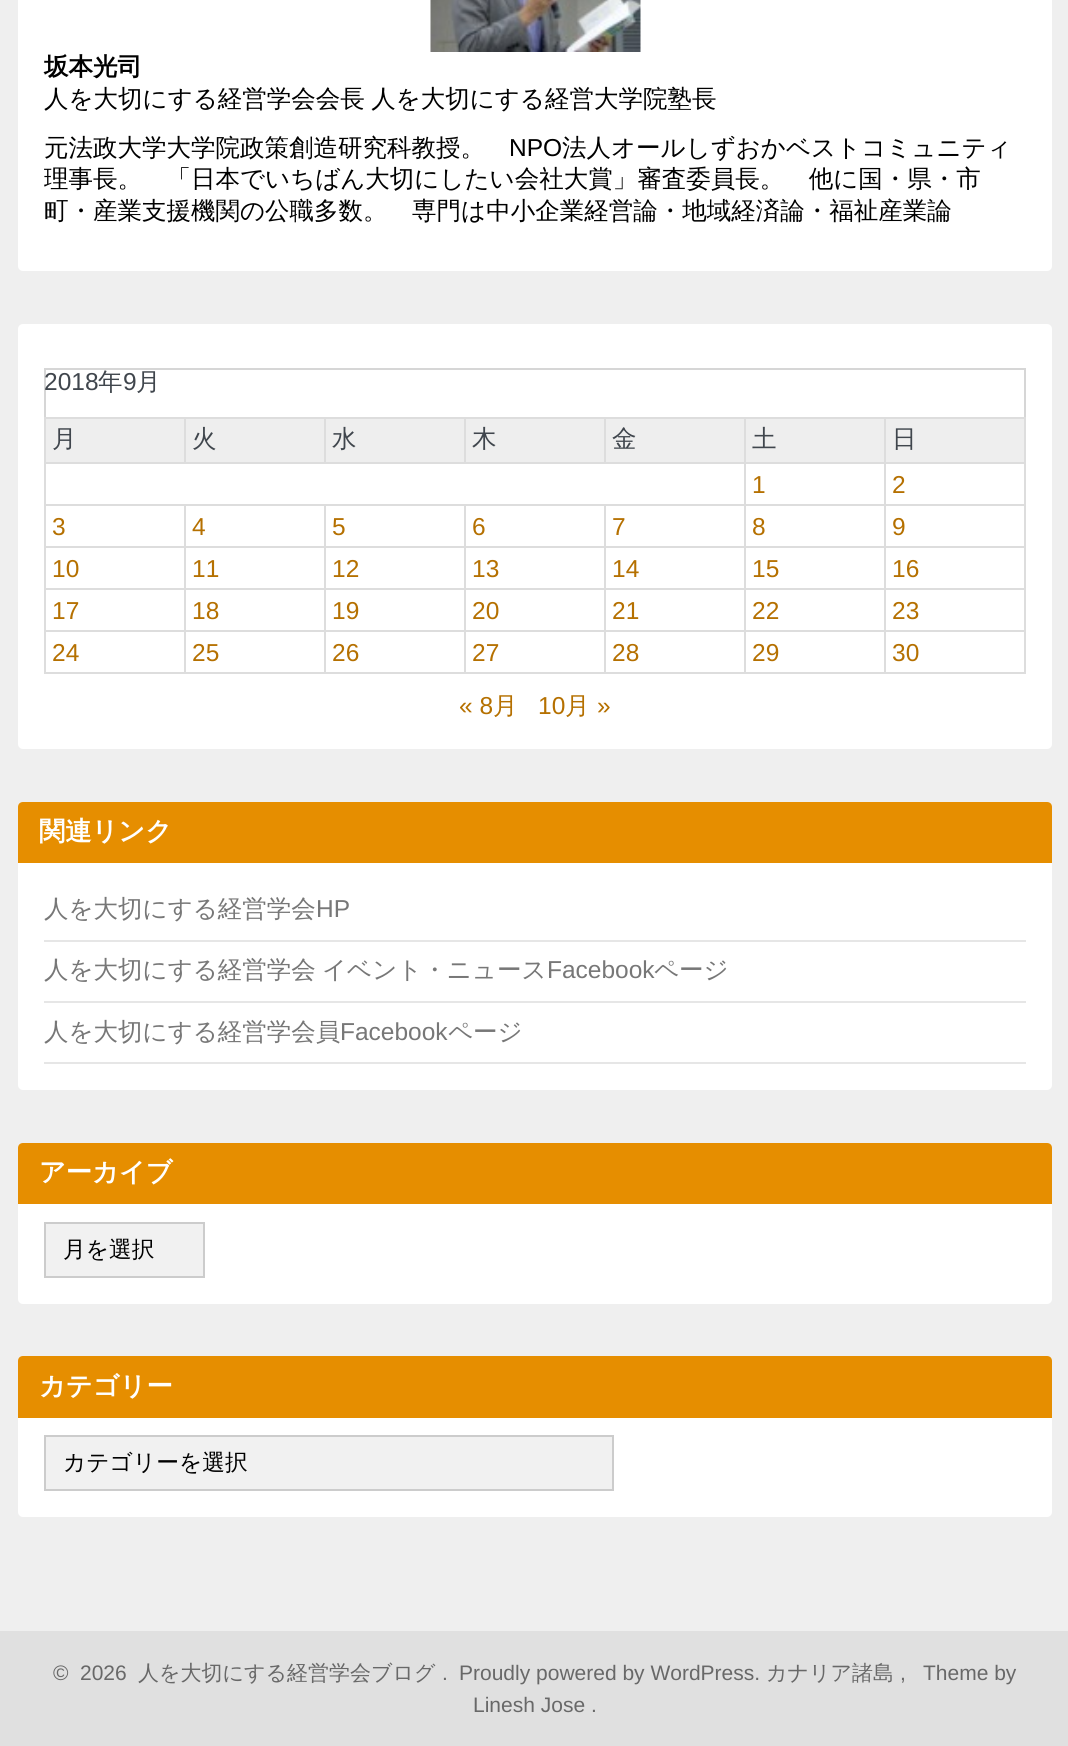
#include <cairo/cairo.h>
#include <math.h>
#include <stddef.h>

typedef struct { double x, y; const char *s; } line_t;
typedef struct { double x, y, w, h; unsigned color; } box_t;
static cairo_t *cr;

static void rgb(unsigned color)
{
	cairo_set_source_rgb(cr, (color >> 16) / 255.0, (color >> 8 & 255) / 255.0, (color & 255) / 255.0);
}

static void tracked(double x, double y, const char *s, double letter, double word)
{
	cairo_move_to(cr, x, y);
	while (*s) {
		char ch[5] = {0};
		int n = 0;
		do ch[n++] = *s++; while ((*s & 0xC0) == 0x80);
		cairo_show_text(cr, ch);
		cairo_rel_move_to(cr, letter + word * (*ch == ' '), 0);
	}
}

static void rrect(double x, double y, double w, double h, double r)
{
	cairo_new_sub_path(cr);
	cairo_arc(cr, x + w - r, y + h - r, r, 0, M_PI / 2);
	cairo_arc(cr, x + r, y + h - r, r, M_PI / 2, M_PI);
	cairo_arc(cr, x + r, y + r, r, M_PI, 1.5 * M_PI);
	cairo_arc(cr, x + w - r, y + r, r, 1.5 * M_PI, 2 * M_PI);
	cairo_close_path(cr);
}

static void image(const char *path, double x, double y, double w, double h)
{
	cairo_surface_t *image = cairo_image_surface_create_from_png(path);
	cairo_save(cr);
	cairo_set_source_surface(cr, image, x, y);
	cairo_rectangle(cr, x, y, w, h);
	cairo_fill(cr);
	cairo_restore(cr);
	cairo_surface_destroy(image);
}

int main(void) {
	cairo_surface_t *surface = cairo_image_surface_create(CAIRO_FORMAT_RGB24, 1068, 1746);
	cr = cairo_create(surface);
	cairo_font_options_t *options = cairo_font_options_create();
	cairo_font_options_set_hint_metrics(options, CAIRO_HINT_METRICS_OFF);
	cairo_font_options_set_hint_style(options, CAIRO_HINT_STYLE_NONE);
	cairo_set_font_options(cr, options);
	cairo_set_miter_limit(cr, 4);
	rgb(0xefefef);
	cairo_paint(cr);
	rgb(0xffffff);
	rrect(18, -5, 1034, 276, 5);
	cairo_fill(cr);
	image("img/1.png", 430, 0, 211, 52);
	rrect(18, 324, 1034, 425, 5);
	cairo_fill(cr);
	{
		static const box_t items[] = {
			{44, 368, 982, 2, 0xd6d6d6},
			{1024, 368, 2, 49, 0xd6d6d6},
			{44, 368, 2, 49, 0xd6d6d6},
			{46, 419, 138, 43, 0xeeeeee},
			{884, 417, 142, 2, 0xdddddd},
			{884, 462, 142, 2, 0xdddddd},
			{884, 504, 142, 2, 0xdddddd},
			{884, 546, 142, 2, 0xdddddd},
			{884, 588, 142, 2, 0xdddddd},
			{884, 630, 142, 2, 0xdddddd},
			{1024, 630, 2, 44, 0xdddddd},
			{884, 672, 142, 2, 0xdddddd},
			{884, 630, 2, 44, 0xdddddd},
			{744, 630, 142, 2, 0xdddddd},
			{884, 588, 2, 44, 0xdddddd},
			{744, 588, 142, 2, 0xdddddd},
			{884, 546, 2, 44, 0xdddddd},
			{744, 546, 142, 2, 0xdddddd},
			{884, 504, 2, 44, 0xdddddd},
			{744, 504, 142, 2, 0xdddddd},
			{884, 462, 2, 44, 0xdddddd},
			{744, 462, 142, 2, 0xdddddd},
			{884, 417, 2, 47, 0xdddddd},
			{744, 417, 142, 2, 0xdddddd},
			{744, 672, 142, 2, 0xdddddd},
			{744, 630, 2, 44, 0xdddddd},
			{604, 630, 142, 2, 0xdddddd},
			{744, 588, 2, 44, 0xdddddd},
			{604, 588, 142, 2, 0xdddddd},
			{744, 546, 2, 44, 0xdddddd},
			{604, 546, 142, 2, 0xdddddd},
			{744, 504, 2, 44, 0xdddddd},
			{604, 504, 142, 2, 0xdddddd},
			{744, 462, 2, 44, 0xdddddd},
			{44, 462, 702, 2, 0xdddddd},
			{744, 417, 2, 47, 0xdddddd},
			{604, 417, 142, 2, 0xdddddd},
			{604, 417, 2, 47, 0xdddddd},
			{464, 417, 142, 2, 0xdddddd},
			{464, 417, 2, 47, 0xdddddd},
			{324, 417, 142, 2, 0xdddddd},
			{324, 417, 2, 47, 0xdddddd},
			{184, 417, 142, 2, 0xdddddd},
			{184, 417, 2, 47, 0xdddddd},
			{44, 417, 142, 2, 0xdddddd},
			{604, 672, 142, 2, 0xdddddd},
			{604, 630, 2, 44, 0xdddddd},
			{464, 630, 142, 2, 0xdddddd},
			{604, 588, 2, 44, 0xdddddd},
			{464, 588, 142, 2, 0xdddddd},
			{604, 546, 2, 44, 0xdddddd},
			{464, 546, 142, 2, 0xdddddd},
			{604, 504, 2, 44, 0xdddddd},
			{464, 504, 142, 2, 0xdddddd},
			{464, 672, 142, 2, 0xdddddd},
			{464, 630, 2, 44, 0xdddddd},
			{324, 630, 142, 2, 0xdddddd},
			{464, 588, 2, 44, 0xdddddd},
			{324, 588, 142, 2, 0xdddddd},
			{464, 546, 2, 44, 0xdddddd},
			{324, 546, 142, 2, 0xdddddd},
			{464, 504, 2, 44, 0xdddddd},
			{324, 504, 142, 2, 0xdddddd},
			{324, 672, 142, 2, 0xdddddd},
			{324, 630, 2, 44, 0xdddddd},
			{184, 630, 142, 2, 0xdddddd},
			{324, 588, 2, 44, 0xdddddd},
			{184, 588, 142, 2, 0xdddddd},
			{324, 546, 2, 44, 0xdddddd},
			{184, 546, 142, 2, 0xdddddd},
			{324, 504, 2, 44, 0xdddddd},
			{184, 504, 142, 2, 0xdddddd},
			{184, 672, 142, 2, 0xdddddd},
			{184, 630, 2, 44, 0xdddddd},
			{44, 630, 142, 2, 0xdddddd},
			{184, 588, 2, 44, 0xdddddd},
			{44, 588, 142, 2, 0xdddddd},
			{184, 546, 2, 44, 0xdddddd},
			{44, 546, 142, 2, 0xdddddd},
			{184, 504, 2, 44, 0xdddddd},
			{44, 504, 142, 2, 0xdddddd},
			{44, 672, 142, 2, 0xdddddd},
			{44, 630, 2, 44, 0xdddddd},
			{44, 588, 2, 44, 0xdddddd},
			{44, 546, 2, 44, 0xdddddd},
			{44, 504, 2, 44, 0xdddddd},
			{44, 462, 2, 44, 0xdddddd},
			{44, 417, 2, 47, 0xdddddd},
			{186, 419, 138, 43, 0xeeeeee},
			{326, 419, 138, 43, 0xeeeeee},
			{466, 419, 138, 43, 0xeeeeee},
			{606, 419, 138, 43, 0xeeeeee},
			{746, 419, 138, 43, 0xeeeeee},
			{886, 419, 138, 43, 0xeeeeee},
			{1024, 588, 2, 44, 0xdddddd},
			{1024, 546, 2, 44, 0xdddddd},
			{1024, 504, 2, 44, 0xdddddd},
			{1024, 462, 2, 44, 0xdddddd},
			{1024, 417, 2, 47, 0xdddddd},
		};
		for (size_t i = 0; i < sizeof items / sizeof *items; i++) {
			rgb(items[i].color);
			cairo_rectangle(cr, items[i].x, items[i].y, items[i].w, items[i].h);
			cairo_fill(cr);
		}
	}
	rgb(0xffffff);
	rrect(18, 802, 1034, 288, 5);
	cairo_fill(cr);
	rgb(0xe68e00);
	cairo_new_path(cr);
	cairo_move_to(cr, 23, 802);
	cairo_line_to(cr, 1047, 802);
	cairo_curve_to(cr, 1050, 802, 1052, 804, 1052, 807);
	cairo_line_to(cr, 1052, 863);
	cairo_line_to(cr, 18, 863);
	cairo_line_to(cr, 18, 807);
	cairo_curve_to(cr, 18, 804, 20, 802, 23, 802);
	cairo_close_path(cr);
	cairo_fill(cr);
	{
		static const box_t items[] = {
			{44, 940, 982, 2, 0xe6e6e6},
			{44, 1001, 982, 2, 0xe6e6e6},
			{44, 1062, 982, 2, 0xe6e6e6},
		};
		for (size_t i = 0; i < sizeof items / sizeof *items; i++) {
			rgb(items[i].color);
			cairo_rectangle(cr, items[i].x, items[i].y, items[i].w, items[i].h);
			cairo_fill(cr);
		}
	}
	rgb(0xffffff);
	rrect(18, 1143, 1034, 161, 5);
	cairo_fill(cr);
	rgb(0xe68e00);
	cairo_new_path(cr);
	cairo_move_to(cr, 23, 1143);
	cairo_line_to(cr, 1047, 1143);
	cairo_curve_to(cr, 1050, 1143, 1052, 1145, 1052, 1148);
	cairo_line_to(cr, 1052, 1204);
	cairo_line_to(cr, 18, 1204);
	cairo_line_to(cr, 18, 1148);
	cairo_curve_to(cr, 18, 1145, 20, 1143, 23, 1143);
	cairo_close_path(cr);
	cairo_fill(cr);
	rgb(0xf1f1f1);
	cairo_rectangle(cr, 45, 1223, 159, 54);
	cairo_fill_preserve(cr);
	rgb(0xcccccc);
	cairo_stroke(cr);
	rgb(0xffffff);
	rrect(18, 1356, 1034, 161, 5);
	cairo_fill(cr);
	rgb(0xe68e00);
	cairo_new_path(cr);
	cairo_move_to(cr, 23, 1356);
	cairo_line_to(cr, 1047, 1356);
	cairo_curve_to(cr, 1050, 1356, 1052, 1358, 1052, 1361);
	cairo_line_to(cr, 1052, 1418);
	cairo_line_to(cr, 18, 1418);
	cairo_line_to(cr, 18, 1361);
	cairo_curve_to(cr, 18, 1358, 20, 1356, 23, 1356);
	cairo_close_path(cr);
	cairo_fill(cr);
	rgb(0xf1f1f1);
	cairo_rectangle(cr, 45, 1436, 568, 54);
	cairo_fill_preserve(cr);
	rgb(0xcccccc);
	cairo_stroke(cr);
	rgb(0xe0e0e0);
	cairo_rectangle(cr, 0, 1631, 1068, 115);
	cairo_fill(cr);
	cairo_select_font_face(cr, "WenQuanYi Zen Hei", CAIRO_FONT_SLANT_NORMAL, CAIRO_FONT_WEIGHT_BOLD);
	cairo_set_font_size(cr, 24.5);
	rgb(0x000000);
	cairo_move_to(cr, 44, 75);
	cairo_show_text(cr, "坂本光司");
	cairo_select_font_face(cr, "WenQuanYi Zen Hei Medium", CAIRO_FONT_SLANT_NORMAL, CAIRO_FONT_WEIGHT_NORMAL);
	tracked(44, 107, "人を大切にする経営学会会長 人を大切にする経営大学院塾長", 0, -1);
	cairo_move_to(cr, 44, 156);
	cairo_show_text(cr, "元法政大学大学院政策創造研究科教授。");
	cairo_select_font_face(cr, "Liberation Sans", CAIRO_FONT_SLANT_NORMAL, CAIRO_FONT_WEIGHT_NORMAL);
	cairo_move_to(cr, 509, 156);
	cairo_show_text(cr, "NPO");
	cairo_select_font_face(cr, "WenQuanYi Zen Hei Medium", CAIRO_FONT_SLANT_NORMAL, CAIRO_FONT_WEIGHT_NORMAL);
	{
		static const line_t items[] = {
			{562, 156, "法人オールしずおかベストコミュニティ"},
			{44, 187, "理事長。　「日本でいちばん大切にしたい会社大賞」審査委員長。　他に国・県・市"},
			{44, 219, "町・産業支援機関の公職多数。　専門は中小企業経営論・地域経済論・福祉産業論"},
		};
		for (size_t i = 0; i < sizeof items / sizeof *items; i++) {
			cairo_move_to(cr, items[i].x, items[i].y);
			cairo_show_text(cr, items[i].s);
		}
	}
	cairo_select_font_face(cr, "Liberation Sans", CAIRO_FONT_SLANT_NORMAL, CAIRO_FONT_WEIGHT_NORMAL);
	rgb(0x40464d);
	cairo_move_to(cr, 44, 390);
	cairo_show_text(cr, "2018");
	cairo_select_font_face(cr, "WenQuanYi Zen Hei Medium", CAIRO_FONT_SLANT_NORMAL, CAIRO_FONT_WEIGHT_NORMAL);
	cairo_move_to(cr, 98, 390);
	cairo_show_text(cr, "年");
	cairo_select_font_face(cr, "Liberation Sans", CAIRO_FONT_SLANT_NORMAL, CAIRO_FONT_WEIGHT_NORMAL);
	cairo_move_to(cr, 123, 390);
	cairo_show_text(cr, "9");
	cairo_select_font_face(cr, "WenQuanYi Zen Hei Medium", CAIRO_FONT_SLANT_NORMAL, CAIRO_FONT_WEIGHT_NORMAL);
	{
		static const line_t items[] = {
			{136, 390, "月"},
			{52, 447, "月"},
			{192, 447, "火"},
			{332, 447, "水"},
			{472, 447, "木"},
			{612, 447, "金"},
			{752, 447, "土"},
			{892, 447, "日"},
		};
		for (size_t i = 0; i < sizeof items / sizeof *items; i++) {
			cairo_move_to(cr, items[i].x, items[i].y);
			cairo_show_text(cr, items[i].s);
		}
	}
	cairo_select_font_face(cr, "Liberation Sans", CAIRO_FONT_SLANT_NORMAL, CAIRO_FONT_WEIGHT_NORMAL);
	rgb(0xb57000);
	{
		static const line_t items[] = {
			{752, 493, "1"},
			{892, 493, "2"},
			{52, 535, "3"},
			{192, 535, "4"},
			{332, 535, "5"},
			{472, 535, "6"},
			{612, 535, "7"},
			{752, 535, "8"},
			{892, 535, "9"},
			{52, 577, "10"},
			{192, 577, "11"},
			{332, 577, "12"},
			{472, 577, "13"},
			{612, 577, "14"},
			{752, 577, "15"},
			{892, 577, "16"},
			{52, 619, "17"},
			{192, 619, "18"},
			{332, 619, "19"},
			{472, 619, "20"},
			{612, 619, "21"},
			{752, 619, "22"},
			{892, 619, "23"},
			{52, 661, "24"},
			{192, 661, "25"},
			{332, 661, "26"},
			{472, 661, "27"},
			{612, 661, "28"},
			{752, 661, "29"},
			{892, 661, "30"},
			{459, 714, "« 8"},
		};
		for (size_t i = 0; i < sizeof items / sizeof *items; i++) {
			cairo_move_to(cr, items[i].x, items[i].y);
			cairo_show_text(cr, items[i].s);
		}
	}
	cairo_select_font_face(cr, "WenQuanYi Zen Hei Medium", CAIRO_FONT_SLANT_NORMAL, CAIRO_FONT_WEIGHT_NORMAL);
	cairo_move_to(cr, 493, 714);
	cairo_show_text(cr, "月");
	cairo_select_font_face(cr, "Liberation Sans", CAIRO_FONT_SLANT_NORMAL, CAIRO_FONT_WEIGHT_NORMAL);
	cairo_move_to(cr, 538, 714);
	cairo_show_text(cr, "10");
	cairo_select_font_face(cr, "WenQuanYi Zen Hei Medium", CAIRO_FONT_SLANT_NORMAL, CAIRO_FONT_WEIGHT_NORMAL);
	cairo_move_to(cr, 565, 714);
	cairo_show_text(cr, "月");
	cairo_select_font_face(cr, "Liberation Sans", CAIRO_FONT_SLANT_NORMAL, CAIRO_FONT_WEIGHT_NORMAL);
	cairo_move_to(cr, 597, 714);
	cairo_show_text(cr, "»");
	cairo_select_font_face(cr, "WenQuanYi Zen Hei", CAIRO_FONT_SLANT_NORMAL, CAIRO_FONT_WEIGHT_BOLD);
	cairo_set_font_size(cr, 26.25);
	rgb(0xffffff);
	cairo_move_to(cr, 39, 840);
	cairo_show_text(cr, "関連リンク");
	cairo_select_font_face(cr, "WenQuanYi Zen Hei Medium", CAIRO_FONT_SLANT_NORMAL, CAIRO_FONT_WEIGHT_NORMAL);
	cairo_set_font_size(cr, 24.5);
	rgb(0x777777);
	cairo_move_to(cr, 44, 917);
	cairo_show_text(cr, "人を大切にする経営学会");
	cairo_select_font_face(cr, "Liberation Sans", CAIRO_FONT_SLANT_NORMAL, CAIRO_FONT_WEIGHT_NORMAL);
	cairo_move_to(cr, 316, 917);
	cairo_show_text(cr, "HP");
	cairo_select_font_face(cr, "WenQuanYi Zen Hei Medium", CAIRO_FONT_SLANT_NORMAL, CAIRO_FONT_WEIGHT_NORMAL);
	cairo_move_to(cr, 44, 978);
	cairo_show_text(cr, "人を大切にする経営学会");
	cairo_move_to(cr, 322, 978);
	cairo_show_text(cr, "イベント・ニュース");
	cairo_select_font_face(cr, "Liberation Sans", CAIRO_FONT_SLANT_NORMAL, CAIRO_FONT_WEIGHT_NORMAL);
	cairo_move_to(cr, 547, 978);
	cairo_show_text(cr, "Facebook");
	cairo_select_font_face(cr, "WenQuanYi Zen Hei Medium", CAIRO_FONT_SLANT_NORMAL, CAIRO_FONT_WEIGHT_NORMAL);
	cairo_move_to(cr, 654, 978);
	cairo_show_text(cr, "ページ");
	cairo_move_to(cr, 44, 1040);
	cairo_show_text(cr, "人を大切にする経営学会員");
	cairo_select_font_face(cr, "Liberation Sans", CAIRO_FONT_SLANT_NORMAL, CAIRO_FONT_WEIGHT_NORMAL);
	cairo_move_to(cr, 340, 1040);
	cairo_show_text(cr, "Facebook");
	cairo_select_font_face(cr, "WenQuanYi Zen Hei Medium", CAIRO_FONT_SLANT_NORMAL, CAIRO_FONT_WEIGHT_NORMAL);
	cairo_move_to(cr, 448, 1040);
	cairo_show_text(cr, "ページ");
	cairo_select_font_face(cr, "WenQuanYi Zen Hei", CAIRO_FONT_SLANT_NORMAL, CAIRO_FONT_WEIGHT_BOLD);
	cairo_set_font_size(cr, 26.25);
	rgb(0xffffff);
	cairo_move_to(cr, 39, 1181);
	cairo_show_text(cr, "アーカイブ");
	cairo_select_font_face(cr, "WenQuanYi Zen Hei Medium", CAIRO_FONT_SLANT_NORMAL, CAIRO_FONT_WEIGHT_NORMAL);
	cairo_set_font_size(cr, 22.75);
	rgb(0x000000);
	cairo_move_to(cr, 63, 1257);
	cairo_show_text(cr, "月を選択");
	cairo_select_font_face(cr, "WenQuanYi Zen Hei", CAIRO_FONT_SLANT_NORMAL, CAIRO_FONT_WEIGHT_BOLD);
	cairo_set_font_size(cr, 26.25);
	rgb(0xffffff);
	cairo_move_to(cr, 39, 1395);
	cairo_show_text(cr, "カテゴリー");
	cairo_select_font_face(cr, "WenQuanYi Zen Hei Medium", CAIRO_FONT_SLANT_NORMAL, CAIRO_FONT_WEIGHT_NORMAL);
	cairo_set_font_size(cr, 22.75);
	rgb(0x000000);
	cairo_move_to(cr, 63, 1470);
	cairo_show_text(cr, "カテゴリーを選択");
	cairo_select_font_face(cr, "Liberation Sans", CAIRO_FONT_SLANT_NORMAL, CAIRO_FONT_WEIGHT_NORMAL);
	cairo_set_font_size(cr, 21);
	rgb(0x686868);
	cairo_move_to(cr, 53, 1680);
	cairo_show_text(cr, "©");
	cairo_move_to(cr, 80, 1680);
	cairo_show_text(cr, "2026");
	cairo_select_font_face(cr, "WenQuanYi Zen Hei Medium", CAIRO_FONT_SLANT_NORMAL, CAIRO_FONT_WEIGHT_NORMAL);
	cairo_move_to(cr, 138, 1680);
	cairo_show_text(cr, "人を大切にする経営学会ブログ");
	cairo_select_font_face(cr, "Liberation Sans", CAIRO_FONT_SLANT_NORMAL, CAIRO_FONT_WEIGHT_NORMAL);
	cairo_move_to(cr, 442, 1680);
	cairo_show_text(cr, ".");
	cairo_move_to(cr, 459, 1680);
	cairo_show_text(cr, "Proudly powered by WordPress.");
	cairo_select_font_face(cr, "WenQuanYi Zen Hei Medium", CAIRO_FONT_SLANT_NORMAL, CAIRO_FONT_WEIGHT_NORMAL);
	cairo_move_to(cr, 766, 1680);
	cairo_show_text(cr, "カナリア諸島");
	cairo_select_font_face(cr, "Liberation Sans", CAIRO_FONT_SLANT_NORMAL, CAIRO_FONT_WEIGHT_NORMAL);
	{
		static const line_t items[] = {
			{900, 1680, ","},
			{923, 1680, "Theme by"},
			{473, 1712, "Linesh Jose ."},
		};
		for (size_t i = 0; i < sizeof items / sizeof *items; i++) {
			cairo_move_to(cr, items[i].x, items[i].y);
			cairo_show_text(cr, items[i].s);
		}
	}
	cairo_surface_write_to_png(surface, "page.png");
	cairo_font_options_destroy(options);
	cairo_destroy(cr);
	cairo_surface_destroy(surface);
	return 0;
}
